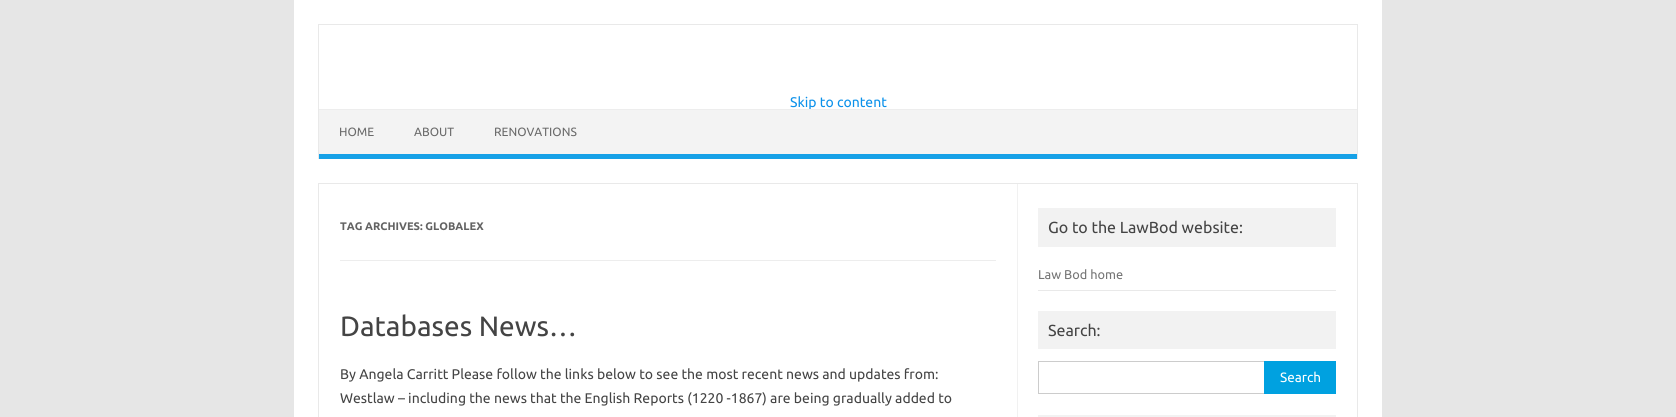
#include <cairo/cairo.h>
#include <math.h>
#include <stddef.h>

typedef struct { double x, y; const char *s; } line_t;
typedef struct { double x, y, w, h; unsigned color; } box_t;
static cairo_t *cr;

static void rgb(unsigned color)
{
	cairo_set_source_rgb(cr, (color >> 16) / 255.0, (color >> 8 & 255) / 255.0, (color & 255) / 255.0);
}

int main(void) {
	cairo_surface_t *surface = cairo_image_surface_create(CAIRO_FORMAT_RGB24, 1676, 417);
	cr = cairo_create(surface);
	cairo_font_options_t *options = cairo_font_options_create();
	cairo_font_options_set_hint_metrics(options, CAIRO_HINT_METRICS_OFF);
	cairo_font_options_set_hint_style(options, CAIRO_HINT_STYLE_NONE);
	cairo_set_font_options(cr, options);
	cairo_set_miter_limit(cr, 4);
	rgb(0xe6e6e6);
	cairo_paint(cr);
	{
		static const box_t items[] = {
			{294, 0, 1088, 417, 0xffffff},
			{318, 24, 1040, 1, 0xe9e9e9},
			{1357, 24, 1, 135, 0xe9e9e9},
			{318, 24, 1, 135, 0xe9e9e9},
			{319, 110, 1038, 44, 0xf3f3f3},
			{319, 154, 1038, 5, 0x16a1e7},
		};
		for (size_t i = 0; i < sizeof items / sizeof *items; i++) {
			rgb(items[i].color);
			cairo_rectangle(cr, items[i].x, items[i].y, items[i].w, items[i].h);
			cairo_fill(cr);
		}
	}
	cairo_rectangle(cr, 318.5, 183.5, 1039, 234);
	rgb(0xe9e9e9);
	cairo_set_line_width(cr, 1);
	cairo_stroke(cr);
	{
		static const box_t items[] = {
			{1017, 184, 1, 233, 0xf1f1f1},
			{340, 260, 656, 1, 0xededed},
			{1038, 208, 298, 39, 0xf2f2f2},
			{1038, 290, 298, 1, 0xe9e9e9},
			{1038, 311, 298, 38, 0xf2f2f2},
		};
		for (size_t i = 0; i < sizeof items / sizeof *items; i++) {
			rgb(items[i].color);
			cairo_rectangle(cr, items[i].x, items[i].y, items[i].w, items[i].h);
			cairo_fill(cr);
		}
	}
	cairo_rectangle(cr, 1038.5, 361.5, 227, 32);
	rgb(0xcccccc);
	cairo_stroke(cr);
	rgb(0x00a1e0);
	cairo_rectangle(cr, 1264, 361, 72, 33);
	cairo_fill(cr);
	rgb(0xf2f2f2);
	cairo_rectangle(cr, 1038, 415, 298, 2);
	cairo_fill(cr);
	cairo_select_font_face(cr, "Ubuntu", CAIRO_FONT_SLANT_NORMAL, CAIRO_FONT_WEIGHT_NORMAL);
	cairo_set_font_size(cr, 14);
	rgb(0x0b91ea);
	cairo_move_to(cr, 790, 107);
	cairo_show_text(cr, "Skip to content");
	rgb(0xededed);
	cairo_rectangle(cr, 319, 109, 1038, 1);
	cairo_fill(cr);
	cairo_set_font_size(cr, 12);
	rgb(0x6a6a6a);
	{
		static const line_t items[] = {
			{339, 136, "HOME"},
			{414, 136, "ABOUT"},
			{494, 136, "RENOVATIONS"},
		};
		for (size_t i = 0; i < sizeof items / sizeof *items; i++) {
			cairo_move_to(cr, items[i].x, items[i].y);
			cairo_show_text(cr, items[i].s);
		}
	}
	cairo_select_font_face(cr, "Ubuntu", CAIRO_FONT_SLANT_NORMAL, CAIRO_FONT_WEIGHT_BOLD);
	cairo_set_font_size(cr, 11);
	rgb(0x636363);
	cairo_move_to(cr, 340, 230);
	cairo_show_text(cr, "TAG ARCHIVES: GLOBALEX");
	cairo_select_font_face(cr, "Ubuntu", CAIRO_FONT_SLANT_NORMAL, CAIRO_FONT_WEIGHT_NORMAL);
	cairo_set_font_size(cr, 28);
	rgb(0x444444);
	cairo_move_to(cr, 340, 336);
	cairo_show_text(cr, "Databases News…");
	cairo_set_font_size(cr, 14);
	cairo_move_to(cr, 340, 379);
	cairo_show_text(cr, "By Angela Carritt Please follow the links below to see the most recent news and updates from:");
	cairo_move_to(cr, 340, 403);
	cairo_show_text(cr, "Westlaw – including the news that the English Reports (1220 -1867) are being gradually added to");
	cairo_set_font_size(cr, 16);
	cairo_move_to(cr, 1048, 233);
	cairo_show_text(cr, "Go to the LawBod website:");
	cairo_set_font_size(cr, 12.75);
	rgb(0x757575);
	cairo_move_to(cr, 1038, 279);
	cairo_show_text(cr, "Law Bod home");
	cairo_set_font_size(cr, 16);
	rgb(0x444444);
	cairo_move_to(cr, 1048, 336);
	cairo_show_text(cr, "Search:");
	cairo_set_font_size(cr, 13.5);
	rgb(0xffffff);
	cairo_move_to(cr, 1280, 382);
	cairo_show_text(cr, "Search");
	cairo_surface_write_to_png(surface, "page.png");
	cairo_font_options_destroy(options);
	cairo_destroy(cr);
	cairo_surface_destroy(surface);
	return 0;
}
